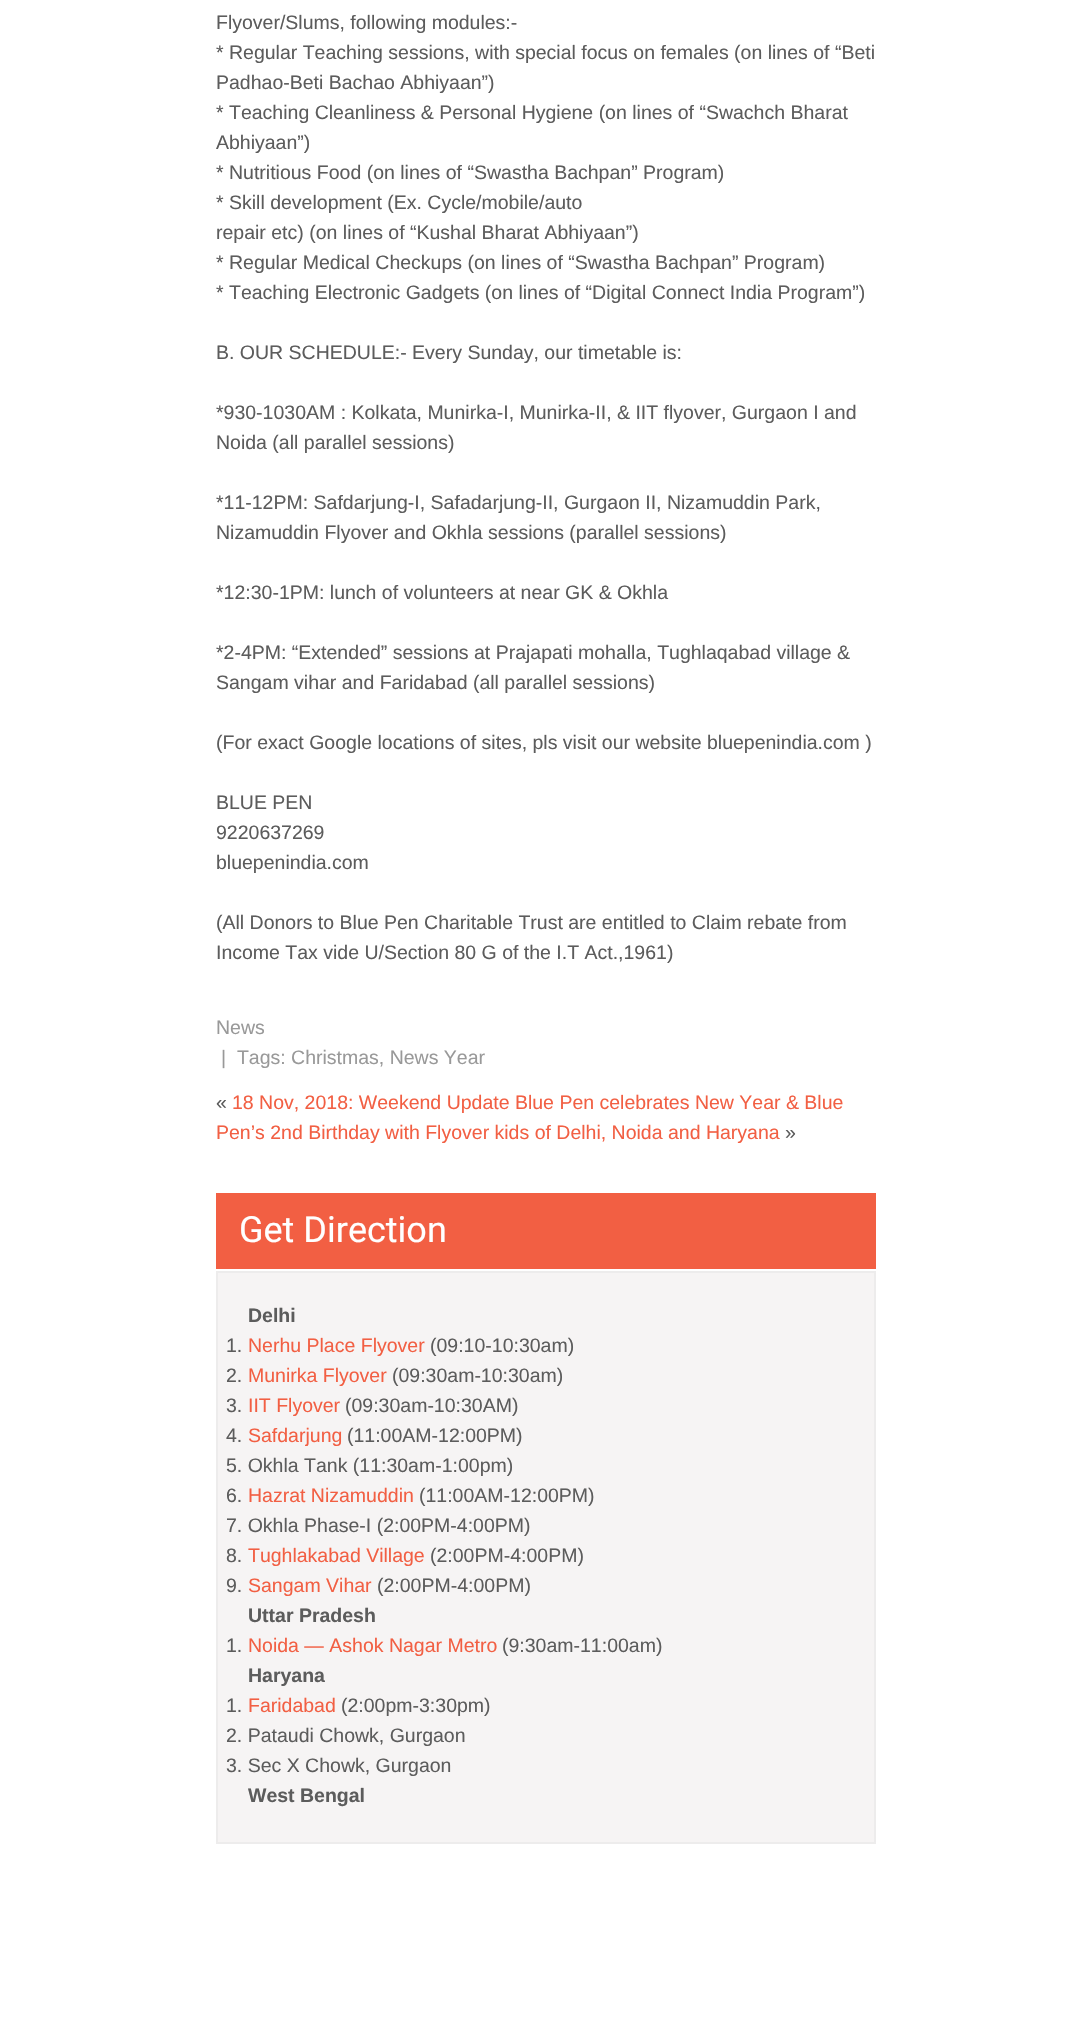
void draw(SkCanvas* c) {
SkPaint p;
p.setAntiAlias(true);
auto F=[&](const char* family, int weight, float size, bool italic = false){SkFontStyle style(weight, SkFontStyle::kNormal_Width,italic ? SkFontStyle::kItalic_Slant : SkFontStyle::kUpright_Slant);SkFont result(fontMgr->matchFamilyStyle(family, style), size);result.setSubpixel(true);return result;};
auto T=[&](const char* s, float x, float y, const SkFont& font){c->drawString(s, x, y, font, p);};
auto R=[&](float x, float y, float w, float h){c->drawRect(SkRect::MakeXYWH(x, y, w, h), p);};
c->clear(0xffffffff);
auto f1 = F("Liberation Sans",400,19.5);
p.setColor(0xff5c5c5c);
T("Flyover/Slums, following modules:-",216,29,f1);
T("* Regular Teaching sessions, with special focus on females (on lines of “Beti",216,59,f1);
T("Padhao-Beti Bachao Abhiyaan”)",216,89,f1);
T("* Teaching Cleanliness & Personal Hygiene (on lines of “Swachch Bharat",216,119,f1);
T("Abhiyaan”)",216,149,f1);
T("* Nutritious Food (on lines of “Swastha Bachpan” Program)",216,179,f1);
T("* Skill development (Ex. Cycle/mobile/auto",216,209,f1);
T("repair etc) (on lines of “Kushal Bharat Abhiyaan”)",216,239,f1);
T("* Regular Medical Checkups (on lines of “Swastha Bachpan” Program)",216,269,f1);
T("* Teaching Electronic Gadgets (on lines of “Digital Connect India Program”)",216,299,f1);
T("B. OUR SCHEDULE:- Every Sunday, our timetable is:",216,359,f1);
T("*930-1030AM : Kolkata, Munirka-I, Munirka-II, & IIT flyover, Gurgaon I and",216,419,f1);
T("Noida (all parallel sessions)",216,449,f1);
T("*11-12PM: Safdarjung-I, Safadarjung-II, Gurgaon II, Nizamuddin Park,",216,509,f1);
T("Nizamuddin Flyover and Okhla sessions (parallel sessions)",216,539,f1);
T("*12:30-1PM: lunch of volunteers at near GK & Okhla",216,599,f1);
T("*2-4PM: “Extended” sessions at Prajapati mohalla, Tughlaqabad village &",216,659,f1);
T("Sangam vihar and Faridabad (all parallel sessions)",216,689,f1);
T("(For exact Google locations of sites, pls visit our website bluepenindia.com )",216,749,f1);
T("BLUE PEN",216,809,f1);
T("9220637269",216,839,f1);
T("bluepenindia.com",216,869,f1);
T("(All Donors to Blue Pen Charitable Trust are entitled to Claim rebate from",216,929,f1);
T("Income Tax vide U/Section 80 G of the I.T Act.,1961)",216,959,f1);
p.setColor(0xff999999);
T("News",216,1034,f1);
T("|  Tags: Christmas, News Year",221,1064,f1);
p.setColor(0xff5c5c5c);
T("«",216,1109,f1);
p.setColor(0xfff25f43);
T("18 Nov, 2018: Weekend Update Blue Pen celebrates New Year & Blue",232,1109,f1);
T("Pen’s 2nd Birthday with Flyover kids of Delhi, Noida and Haryana",216,1139,f1);
p.setColor(0xff5c5c5c);
T("»",785,1139,f1);
p.setColor(0xfff25f43);
R(216,1193,660,76);
auto f2 = F("Roboto",400,36);
p.setColor(0xffffffff);
T("Get Direction",239,1242,f2);
p.setColor(0xfff6f4f4);
c->drawRect(SkRect::MakeXYWH(217,1272,658,571),p);
p.setStroke(true);
p.setStrokeWidth(2);
p.setColor(0xffedecec);
c->drawRect(SkRect::MakeXYWH(217,1272,658,571),p);
auto f3 = F("Liberation Sans",700,19.5);
p.setStroke(false);
p.setColor(0xff5c5c5c);
T("Delhi",248,1322,f3);
T("1.",226,1352,f1);
p.setColor(0xfff25f43);
T("Nerhu Place Flyover",248,1352,f1);
p.setColor(0xff5c5c5c);
T("(09:10-10:30am)",430,1352,f1);
T("2.",226,1382,f1);
p.setColor(0xfff25f43);
T("Munirka Flyover",248,1382,f1);
p.setColor(0xff5c5c5c);
T("(09:30am-10:30am)",392,1382,f1);
T("3.",226,1412,f1);
p.setColor(0xfff25f43);
T("IIT Flyover",248,1412,f1);
p.setColor(0xff5c5c5c);
T("(09:30am-10:30AM)",345,1412,f1);
T("4.",226,1442,f1);
p.setColor(0xfff25f43);
T("Safdarjung",248,1442,f1);
p.setColor(0xff5c5c5c);
T("(11:00AM-12:00PM)",347,1442,f1);
T("5. Okhla Tank (11:30am-1:00pm)",226,1472,f1);
T("6.",226,1502,f1);
p.setColor(0xfff25f43);
T("Hazrat Nizamuddin",248,1502,f1);
p.setColor(0xff5c5c5c);
T("(11:00AM-12:00PM)",419,1502,f1);
T("7. Okhla Phase-I (2:00PM-4:00PM)",226,1532,f1);
T("8.",226,1562,f1);
p.setColor(0xfff25f43);
T("Tughlakabad Village",248,1562,f1);
p.setColor(0xff5c5c5c);
T("(2:00PM-4:00PM)",430,1562,f1);
T("9.",226,1592,f1);
p.setColor(0xfff25f43);
T("Sangam Vihar",248,1592,f1);
p.setColor(0xff5c5c5c);
T("(2:00PM-4:00PM)",377,1592,f1);
T("Uttar Pradesh",248,1622,f3);
T("1.",226,1652,f1);
p.setColor(0xfff25f43);
T("Noida — Ashok Nagar Metro",248,1652,f1);
p.setColor(0xff5c5c5c);
T("(9:30am-11:00am)",502,1652,f1);
T("Haryana",248,1682,f3);
T("1.",226,1712,f1);
p.setColor(0xfff25f43);
T("Faridabad",248,1712,f1);
p.setColor(0xff5c5c5c);
T("(2:00pm-3:30pm)",341,1712,f1);
T("2. Pataudi Chowk, Gurgaon",226,1742,f1);
T("3. Sec X Chowk, Gurgaon",226,1772,f1);
T("West Bengal",248,1802,f3);
}
